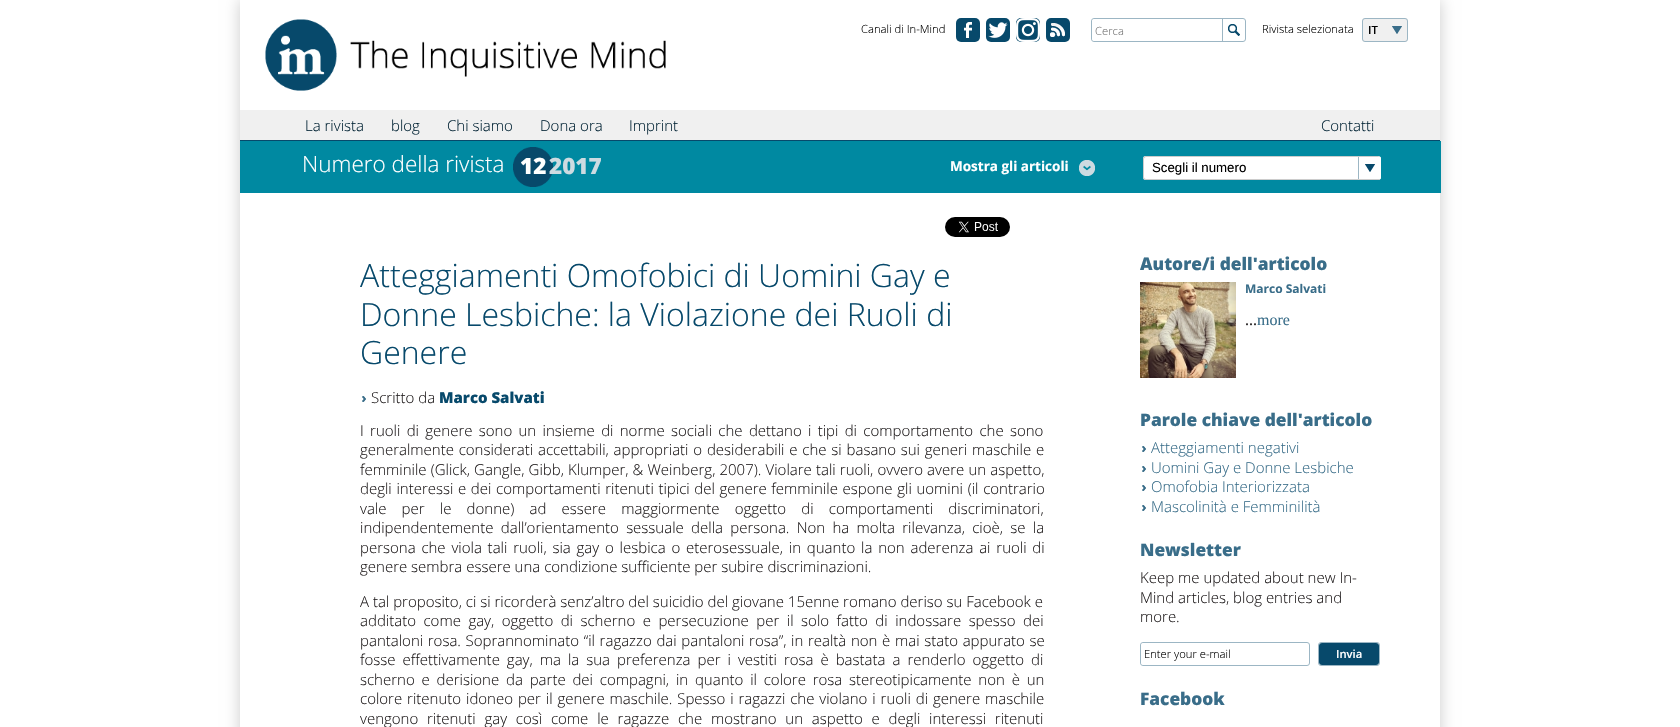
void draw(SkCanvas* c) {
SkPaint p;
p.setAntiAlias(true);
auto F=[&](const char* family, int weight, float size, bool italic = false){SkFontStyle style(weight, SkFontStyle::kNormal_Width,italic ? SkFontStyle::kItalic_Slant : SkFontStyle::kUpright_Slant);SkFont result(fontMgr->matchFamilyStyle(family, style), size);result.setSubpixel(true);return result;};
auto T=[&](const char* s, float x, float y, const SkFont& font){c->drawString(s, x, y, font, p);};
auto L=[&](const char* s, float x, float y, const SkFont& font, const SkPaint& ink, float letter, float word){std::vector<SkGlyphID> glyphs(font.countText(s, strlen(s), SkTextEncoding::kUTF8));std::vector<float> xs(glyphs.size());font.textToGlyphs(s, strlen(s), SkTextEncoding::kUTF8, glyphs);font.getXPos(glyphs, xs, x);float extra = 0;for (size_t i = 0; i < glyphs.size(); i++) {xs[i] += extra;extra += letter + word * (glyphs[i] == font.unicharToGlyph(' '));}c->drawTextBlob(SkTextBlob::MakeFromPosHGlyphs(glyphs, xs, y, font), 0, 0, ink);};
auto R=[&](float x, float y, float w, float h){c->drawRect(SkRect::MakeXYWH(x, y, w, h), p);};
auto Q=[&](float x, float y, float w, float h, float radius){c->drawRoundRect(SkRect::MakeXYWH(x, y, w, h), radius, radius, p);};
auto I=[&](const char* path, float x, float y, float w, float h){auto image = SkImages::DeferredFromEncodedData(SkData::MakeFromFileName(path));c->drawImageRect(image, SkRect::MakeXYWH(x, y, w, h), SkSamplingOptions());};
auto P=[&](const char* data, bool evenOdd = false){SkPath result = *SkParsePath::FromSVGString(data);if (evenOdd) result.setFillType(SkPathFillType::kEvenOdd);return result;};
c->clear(0xffffffff);
c->save();
c->clipPath(P("M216 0h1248v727h-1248zm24 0h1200v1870h-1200z",true),true);
p.setColor(0xffcccccc);
p.setMaskFilter(SkMaskFilter::MakeBlur(kNormal_SkBlurStyle, 7.5));
c->drawRect(SkRect::MakeXYWH(240,0,1200,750),p);
p.setMaskFilter(nullptr);
c->restore();
I("1.png",265,19,401,72);
auto f1 = F("Open Sans",300,11.25);
p.setColor(0xff000000);
T("Canali di In-Mind",861,33,f1);
p.setColor(0xff07496b);
Q(956,18,24,24,5);
I("2.png",964,22,8,16);
Q(986,18,24,24,5);
I("3.png",988,22,20,16);
Q(1016,18,24,24,5);
I("4.png",1016,18,24,24);
Q(1046,18,24,24,5);
I("5.png",1050,23,15,14);
p.setStroke(true);
p.setStrokeWidth(1);
p.setColor(0xff9cb6c4);
c->drawRoundRect(SkRect::MakeXYWH(1091.5,18.5,154,23),2.5,2.5,p);
p.setStroke(false);
p.setColor(0xffffffff);
Q(1092,19,128,22,3);
p.setColor(0xff757575);
T("Cerca",1095,35,f1);
p.setColor(0xff9cb6c4);
R(1222,19,1,22);
I("6.png",1228,24,12,12);
p.setColor(0xff000000);
T("Rivista selezionata",1262,33,f1);
p.setColor(0xfff0f0f0);
Q(1362,18,46,24,3);
I("7.png",1392,26,10,8);
p.setStroke(true);
p.setColor(0xff9cb6c4);
c->drawRoundRect(SkRect::MakeXYWH(1362.5,18.5,45,23),2.5,2.5,p);
auto f2 = F("Open Sans",600,11.25);
p.setStroke(false);
p.setColor(0xff000000);
T("IT",1368,34,f2);
p.setColor(0xfff0f0f0);
R(240,110,1200,30);
p.setColor(0xff07496b);
R(240,140,1200,1);
auto f3 = F("Open Sans",300,15);
p.setColor(0xff042536);
T("La rivista",305,131,f3);
T("blog",391,131,f3);
T("Chi siamo",447,131,f3);
T("Dona ora",540,131,f3);
T("Imprint",629,131,f3);
T("Contatti",1321,131,f3);
p.setColor(0xff0089a1);
R(240,141,1201,52);
auto f4 = F("Open Sans",300,22.5);
p.setColor(0xffffffff);
T("Numero della rivista",302,172,f4);
I("8.png",513,147,40,40);
auto f5 = F("Open Sans",800,22.5);
T("12",520,174,f5);
p.setColor(0xffcddbe1);
T("2017",549,174,f5);
I("9.png",1079,160,16,16);
auto f6 = F("Open Sans",700,13.5);
p.setColor(0xffffffff);
T("Mostra gli articoli",950,171,f6);
Q(1143,156,238,24,3);
I("10.png",1358,157,23,22);
p.setColor(0xffcccccc);
c->drawPath(P("M1146 156c-2 0-3 1-3 3v18c0 2 1 3 3 3h232c1 0 2 0 2-1h-234c-1 0-2-1-2-2v-18c0-1 1-2 2-2h234l-2-1z"),p);
auto f7 = F("Liberation Sans",400,13.25);
p.setColor(0xff000000);
T("Scegli il numero",1152,172,f7);
I("11.png",945,217,65,20);
auto f8 = F("Open Sans",300,32);
p.setColor(0xff07496b);
T("Atteggiamenti Omofobici di Uomini Gay e",360,287,f8);
T("Donne Lesbiche: la Violazione dei Ruoli di",360,326,f8);
T("Genere",360,364,f8);
I("12.png",362,396,4,6);
p.setColor(0xff231f20);
T("Scritto da",371,403,f3);
auto f9 = F("Open Sans",800,15);
p.setColor(0xff07496b);
T("Marco Salvati",439,403,f9);
p.setColor(0xff231f20);
L("I ruoli di genere sono un insieme di norme sociali che dettano i tipi di comportamento che sono",360,436,f3,p,0,2.4);
L("generalmente considerati accettabili, appropriati o desiderabili e che si basano sui generi maschile e",360,455,f3,p,0,.9);
L("femminile (Glick, Gangle, Gibb, Klumper, & Weinberg, 2007). Violare tali ruoli, ovvero avere un aspetto,",360,475,f3,p,0,.25);
L("degli interessi e dei comportamenti ritenuti tipici del genere femminile espone gli uomini (il contrario",360,494,f3,p,0,.75);
L("vale per le donne) ad essere maggiormente oggetto di comportamenti discriminatori,",360,514,f3,p,0,11.25);
L("indipendentemente dall’orientamento sessuale della persona. Non ha molta rilevanza, cioè, se la",360,533,f3,p,0,3.4);
L("persona che viola tali ruoli, sia gay o lesbica o eterosessuale, in quanto la non aderenza ai ruoli di",360,553,f3,p,0,1.9);
T("genere sembra essere una condizione sufficiente per subire discriminazioni.",360,572,f3);
T("A tal proposito, ci si ricorderà senz’altro del suicidio del giovane 15enne romano deriso su Facebook e",360,607,f3);
L("additato come gay, oggetto di scherno e persecuzione per il solo fatto di indossare spesso dei",360,626,f3,p,0,3.6);
L("pantaloni rosa. Soprannominato “il ragazzo dai pantaloni rosa”, in realtà non è mai stato appurato se",360,646,f3,p,0,.75);
L("fosse effettivamente gay, ma la sua preferenza per i vestiti rosa è bastata a renderlo oggetto di",360,665,f3,p,0,3.1);
L("scherno e derisione da parte dei compagni, in quanto il colore rosa stereotipicamente non è un",360,685,f3,p,0,2.9);
L("colore ritenuto idoneo per il genere maschile. Spesso i ragazzi che violano i ruoli di genere maschile",360,704,f3,p,0,1);
L("vengono ritenuti gay così come le ragazze che mostrano un aspetto e degli interessi ritenuti",360,724,f3,p,0,4.9);
auto f10 = F("Open Sans",800,17.3);
p.setColor(0xff396d89);
T("Autore/i dell'articolo",1140,270,f10);
I("13.png",1140,282,96,96);
auto f11 = F("Open Sans",700,12);
T("Marco Salvati",1245,293,f11);
auto f12 = F("Liberation Serif",400,16);
p.setColor(0xff231f20);
T("...",1245,325,f12);
p.setColor(0xff396d89);
T("more",1257,325,f12);
T("Parole chiave dell'articolo",1140,426,f10);
I("12.png",1142,446,4,6);
T("Atteggiamenti negativi",1151,453,f3);
I("12.png",1142,466,4,6);
T("Uomini Gay e Donne Lesbiche",1151,473,f3);
I("12.png",1142,485,4,6);
T("Omofobia Interiorizzata",1151,492,f3);
I("12.png",1142,505,4,6);
T("Mascolinità e Femminilità",1151,512,f3);
T("Newsletter",1140,556,f10);
p.setColor(0xff231f20);
T("Keep me updated about new In-",1140,583,f3);
T("Mind articles, blog entries and",1140,603,f3);
T("more.",1140,622,f3);
p.setStroke(true);
p.setColor(0xff9cb6c4);
c->drawRoundRect(SkRect::MakeXYWH(1140.5,642.5,169,23),2.5,2.5,p);
p.setStroke(false);
p.setColor(0xffffffff);
Q(1141,643,158,22,3);
p.setColor(0xff000000);
T("Enter your e-mail",1144,658,f1);
p.setStroke(true);
p.setColor(0xff9cb6c4);
c->drawRoundRect(SkRect::MakeXYWH(1318.5,642.5,61,23),2.5,2.5,p);
p.setStroke(false);
p.setColor(0xff07496b);
Q(1319,643,60,22,3);
p.setColor(0xffffffff);
T("Invia",1336,658,f2);
p.setColor(0xff396d89);
T("Facebook",1140,705,f10);
}
